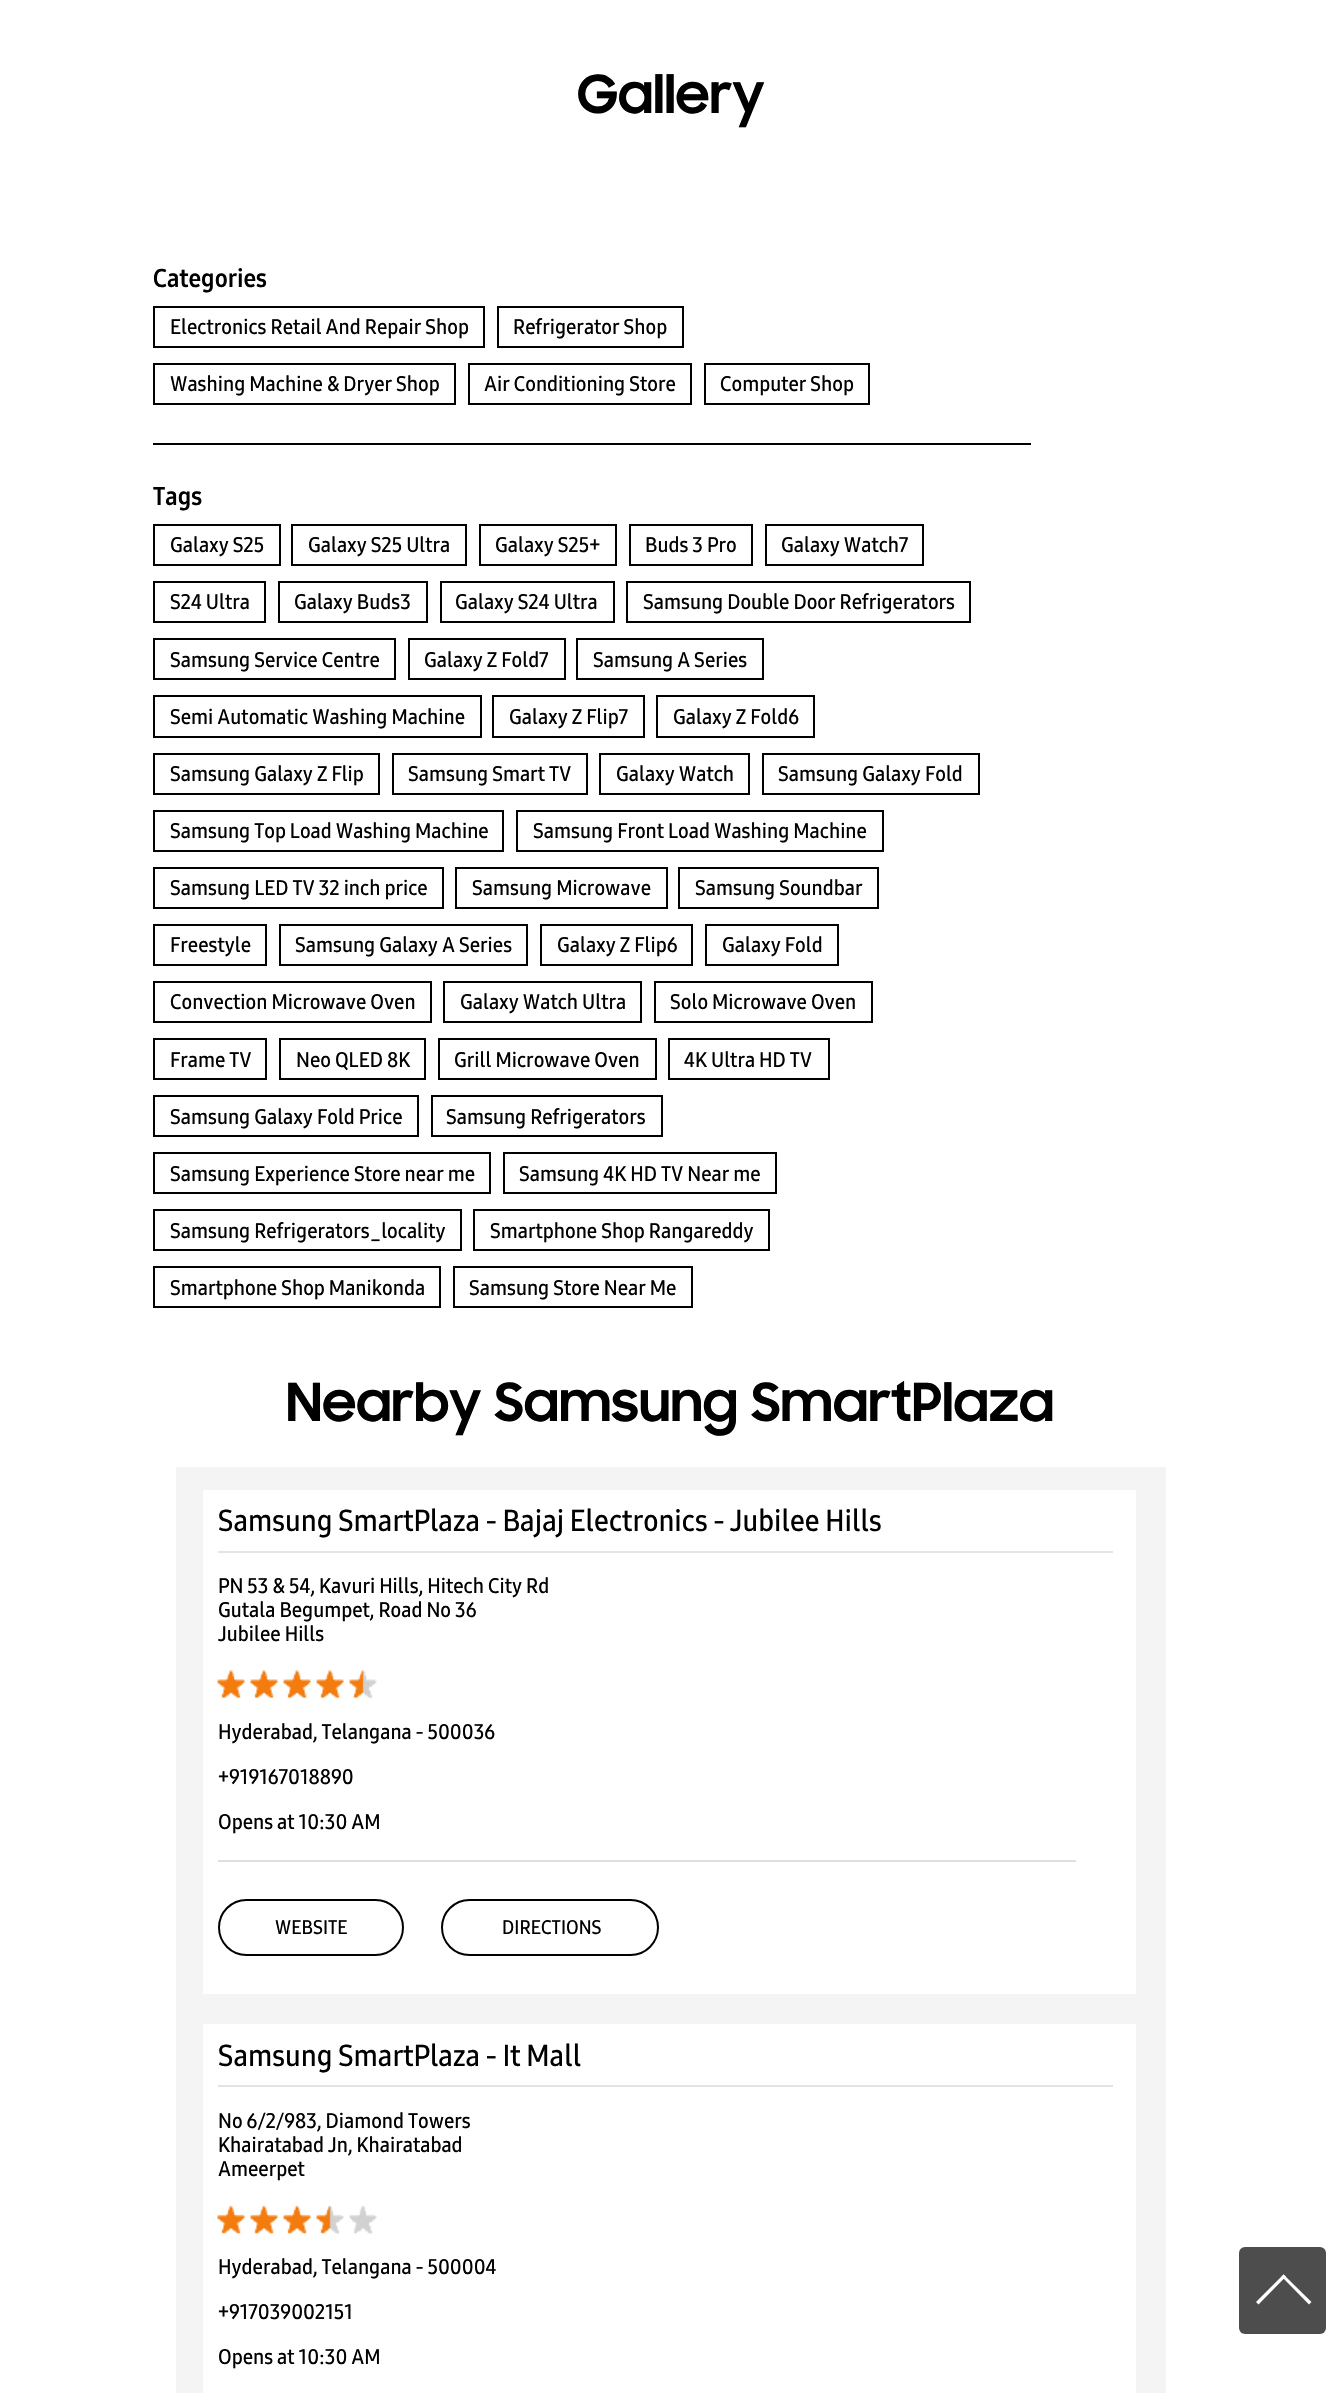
void draw(SkCanvas* c) {
SkPaint p;
p.setAntiAlias(true);
auto F=[&](const char* family, int weight, float size, bool italic = false){SkFontStyle style(weight, SkFontStyle::kNormal_Width,italic ? SkFontStyle::kItalic_Slant : SkFontStyle::kUpright_Slant);SkFont result(fontMgr->matchFamilyStyle(family, style), size);result.setSubpixel(true);return result;};
auto T=[&](const char* s, float x, float y, const SkFont& font){c->drawString(s, x, y, font, p);};
auto R=[&](float x, float y, float w, float h){c->drawRect(SkRect::MakeXYWH(x, y, w, h), p);};
auto Q=[&](float x, float y, float w, float h, float radius){c->drawRoundRect(SkRect::MakeXYWH(x, y, w, h), radius, radius, p);};
auto I=[&](const char* path, float x, float y, float w, float h){auto image = SkImages::DeferredFromEncodedData(SkData::MakeFromFileName(path));c->drawImageRect(image, SkRect::MakeXYWH(x, y, w, h), SkSamplingOptions());};
auto P=[&](const char* data, bool evenOdd = false){SkPath result = *SkParsePath::FromSVGString(data);if (evenOdd) result.setFillType(SkPathFillType::kEvenOdd);return result;};
c->clear(0xffffffff);
auto f1 = F("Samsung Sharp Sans",700,52.5);
p.setColor(0xff000000);
T("Gallery",577,113,f1);
auto f2 = F("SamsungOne",700,25.5);
T("Categories",153,287,f2);
R(153,443,878,2);
p.setStroke(true);
p.setStrokeWidth(2);
c->drawRect(SkRect::MakeXYWH(154,307,330,40),p);
auto f3 = F("SamsungOne",600,21);
p.setStroke(false);
T("Electronics Retail And Repair Shop",170,334,f3);
p.setStroke(true);
c->drawRect(SkRect::MakeXYWH(498,307,185,40),p);
p.setStroke(false);
T("Refrigerator Shop",513,334,f3);
p.setStroke(true);
c->drawRect(SkRect::MakeXYWH(154,364,301,40),p);
p.setStroke(false);
T("Washing Machine & Dryer Shop",170,391,f3);
p.setStroke(true);
c->drawRect(SkRect::MakeXYWH(469,364,222,40),p);
p.setStroke(false);
T("Air Conditioning Store",484,391,f3);
p.setStroke(true);
c->drawRect(SkRect::MakeXYWH(705,364,164,40),p);
p.setStroke(false);
T("Computer Shop",720,391,f3);
T("Tags",153,505,f2);
p.setStroke(true);
c->drawRect(SkRect::MakeXYWH(154,525,126,40),p);
p.setStroke(false);
T("Galaxy S25",170,552,f3);
p.setStroke(true);
c->drawRect(SkRect::MakeXYWH(292,525,174,40),p);
p.setStroke(false);
T("Galaxy S25 Ultra",308,552,f3);
p.setStroke(true);
c->drawRect(SkRect::MakeXYWH(480,525,136,40),p);
p.setStroke(false);
T("Galaxy S25+",495,552,f3);
p.setStroke(true);
c->drawRect(SkRect::MakeXYWH(630,525,122,40),p);
p.setStroke(false);
T("Buds 3 Pro",645,552,f3);
p.setStroke(true);
c->drawRect(SkRect::MakeXYWH(766,525,157,40),p);
p.setStroke(false);
T("Galaxy Watch7",781,552,f3);
p.setStroke(true);
c->drawRect(SkRect::MakeXYWH(154,582,111,40),p);
p.setStroke(false);
T("S24 Ultra",170,609,f3);
p.setStroke(true);
c->drawRect(SkRect::MakeXYWH(279,582,148,40),p);
p.setStroke(false);
T("Galaxy Buds3",294,609,f3);
p.setStroke(true);
c->drawRect(SkRect::MakeXYWH(441,582,173,40),p);
p.setStroke(false);
T("Galaxy S24 Ultra",455,609,f3);
p.setStroke(true);
c->drawRect(SkRect::MakeXYWH(627,582,343,40),p);
p.setStroke(false);
T("Samsung Double Door Refrigerators",643,609,f3);
p.setStroke(true);
c->drawRect(SkRect::MakeXYWH(154,639,241,40),p);
p.setStroke(false);
T("Samsung Service Centre",170,667,f3);
p.setStroke(true);
c->drawRect(SkRect::MakeXYWH(409,639,156,40),p);
p.setStroke(false);
T("Galaxy Z Fold7",424,667,f3);
p.setStroke(true);
c->drawRect(SkRect::MakeXYWH(577,639,186,40),p);
p.setStroke(false);
T("Samsung A Series",593,667,f3);
p.setStroke(true);
c->drawRect(SkRect::MakeXYWH(154,696,327,41),p);
p.setStroke(false);
T("Semi Automatic Washing Machine",170,724,f3);
p.setStroke(true);
c->drawRect(SkRect::MakeXYWH(493,696,151,41),p);
p.setStroke(false);
T("Galaxy Z Flip7",509,724,f3);
p.setStroke(true);
c->drawRect(SkRect::MakeXYWH(657,696,157,41),p);
p.setStroke(false);
T("Galaxy Z Fold6",673,724,f3);
p.setStroke(true);
c->drawRect(SkRect::MakeXYWH(154,754,225,40),p);
p.setStroke(false);
T("Samsung Galaxy Z Flip",170,781,f3);
p.setStroke(true);
c->drawRect(SkRect::MakeXYWH(393,754,194,40),p);
p.setStroke(false);
T("Samsung Smart TV",408,781,f3);
p.setStroke(true);
c->drawRect(SkRect::MakeXYWH(600,754,149,40),p);
p.setStroke(false);
T("Galaxy Watch",616,781,f3);
p.setStroke(true);
c->drawRect(SkRect::MakeXYWH(763,754,216,40),p);
p.setStroke(false);
T("Samsung Galaxy Fold",778,781,f3);
p.setStroke(true);
c->drawRect(SkRect::MakeXYWH(154,811,349,40),p);
p.setStroke(false);
T("Samsung Top Load Washing Machine",170,838,f3);
p.setStroke(true);
c->drawRect(SkRect::MakeXYWH(517,811,366,40),p);
p.setStroke(false);
T("Samsung Front Load Washing Machine",533,838,f3);
p.setStroke(true);
c->drawRect(SkRect::MakeXYWH(154,868,289,40),p);
p.setStroke(false);
T("Samsung LED TV 32 inch price",170,895,f3);
p.setStroke(true);
c->drawRect(SkRect::MakeXYWH(456,868,211,40),p);
p.setStroke(false);
T("Samsung Microwave",472,895,f3);
p.setStroke(true);
c->drawRect(SkRect::MakeXYWH(679,868,199,40),p);
p.setStroke(false);
T("Samsung Soundbar",695,895,f3);
p.setStroke(true);
c->drawRect(SkRect::MakeXYWH(154,925,112,40),p);
p.setStroke(false);
T("Freestyle",170,952,f3);
p.setStroke(true);
c->drawRect(SkRect::MakeXYWH(280,925,247,40),p);
p.setStroke(false);
T("Samsung Galaxy A Series",295,952,f3);
p.setStroke(true);
c->drawRect(SkRect::MakeXYWH(541,925,151,40),p);
p.setStroke(false);
T("Galaxy Z Flip6",557,952,f3);
p.setStroke(true);
c->drawRect(SkRect::MakeXYWH(706,925,132,40),p);
p.setStroke(false);
T("Galaxy Fold",722,952,f3);
p.setStroke(true);
c->drawRect(SkRect::MakeXYWH(154,982,277,40),p);
p.setStroke(false);
T("Convection Microwave Oven",170,1009,f3);
p.setStroke(true);
c->drawRect(SkRect::MakeXYWH(444,982,197,40),p);
p.setStroke(false);
T("Galaxy Watch Ultra",460,1009,f3);
p.setStroke(true);
c->drawRect(SkRect::MakeXYWH(655,982,217,40),p);
p.setStroke(false);
T("Solo Microwave Oven",670,1009,f3);
p.setStroke(true);
c->drawRect(SkRect::MakeXYWH(154,1039,112,40),p);
p.setStroke(false);
T("Frame TV",170,1067,f3);
p.setStroke(true);
c->drawRect(SkRect::MakeXYWH(280,1039,145,40),p);
p.setStroke(false);
T("Neo QLED 8K",296,1067,f3);
p.setStroke(true);
c->drawRect(SkRect::MakeXYWH(439,1039,217,40),p);
p.setStroke(false);
T("Grill Microwave Oven",454,1067,f3);
p.setStroke(true);
c->drawRect(SkRect::MakeXYWH(669,1039,160,40),p);
p.setStroke(false);
T("4K Ultra HD TV",684,1067,f3);
p.setStroke(true);
c->drawRect(SkRect::MakeXYWH(154,1096,264,40),p);
p.setStroke(false);
T("Samsung Galaxy Fold Price",170,1124,f3);
p.setStroke(true);
c->drawRect(SkRect::MakeXYWH(432,1096,230,40),p);
p.setStroke(false);
T("Samsung Refrigerators",446,1124,f3);
p.setStroke(true);
c->drawRect(SkRect::MakeXYWH(154,1153,336,40),p);
p.setStroke(false);
T("Samsung Experience Store near me",170,1181,f3);
p.setStroke(true);
c->drawRect(SkRect::MakeXYWH(504,1153,272,40),p);
p.setStroke(false);
T("Samsung 4K HD TV Near me",519,1181,f3);
p.setStroke(true);
c->drawRect(SkRect::MakeXYWH(154,1210,307,40),p);
p.setStroke(false);
T("Samsung Refrigerators_locality",170,1238,f3);
p.setStroke(true);
c->drawRect(SkRect::MakeXYWH(474,1210,295,40),p);
p.setStroke(false);
T("Smartphone Shop Rangareddy",490,1238,f3);
p.setStroke(true);
c->drawRect(SkRect::MakeXYWH(154,1267,286,40),p);
p.setStroke(false);
T("Smartphone Shop Manikonda",170,1295,f3);
p.setStroke(true);
c->drawRect(SkRect::MakeXYWH(454,1267,238,40),p);
p.setStroke(false);
T("Samsung Store Near Me",469,1295,f3);
T("Nearby Samsung SmartPlaza",286,1421,f1);
p.setColor(0xfff4f4f4);
R(176,1467,990,926);
p.setColor(0xffffffff);
R(203,1490,933,504);
p.setColor(0xffe4e4e4);
R(218,1551,895,2);
auto f4 = F("SamsungOne",600,30);
p.setColor(0xff000000);
T("Samsung SmartPlaza - Bajaj Electronics - Jubilee Hills",218,1531,f4);
T("PN 53 & 54, Kavuri Hills, Hitech City Rd",218,1593,f3);
T("Gutala Begumpet, Road No 36",218,1617,f3);
T("Jubilee Hills",218,1641,f3);
I("1.png",217,1670,28,29);
I("1.png",250,1670,28,29);
I("2.png",283,1670,28,29);
I("1.png",316,1670,28,29);
I("3.png",349,1670,28,29);
T("Hyderabad, Telangana - 500036",218,1739,f3);
T("+919167018890",218,1784,f3);
T("Opens at 10:30 AM",218,1829,f3);
p.setColor(0xffdfdfdf);
R(218,1860,858,2);
p.setStroke(true);
p.setColor(0xff000000);
c->drawRoundRect(SkRect::MakeXYWH(219,1900,184,55),27.5,27.5,p);
auto f5 = F("SamsungOne",600,19.5);
p.setStroke(false);
T("WEBSITE",275,1934,f5);
p.setStroke(true);
c->drawRoundRect(SkRect::MakeXYWH(442,1900,216,55),27.5,27.5,p);
p.setStroke(false);
T("DIRECTIONS",502,1934,f5);
p.setColor(0xffffffff);
R(203,2024,933,369);
p.setColor(0xffe4e4e4);
R(218,2085,895,2);
p.setColor(0xff000000);
T("Samsung SmartPlaza - It Mall",218,2066,f4);
T("No 6/2/983, Diamond Towers",218,2128,f3);
T("Khairatabad Jn, Khairatabad",218,2152,f3);
T("Ameerpet",218,2176,f3);
I("4.png",217,2205,28,30);
I("4.png",250,2205,28,30);
I("5.png",283,2205,28,30);
I("6.png",316,2205,28,30);
I("7.png",349,2205,28,30);
T("Hyderabad, Telangana - 500004",218,2274,f3);
T("+917039002151",218,2319,f3);
T("Opens at 10:30 AM",218,2364,f3);
p.setColor(0xff4d4d4d);
Q(1239,2247,87,87,6);
p.setColor(0xffffffff);
c->drawPath(P("M1258.5 2304.5l-2.5-2.5l27.5-27.5l2.5 2z"),p);
c->drawPath(P("M1309 2304.5l-27.5-28l2-2l28 27.5z"),p);
}
